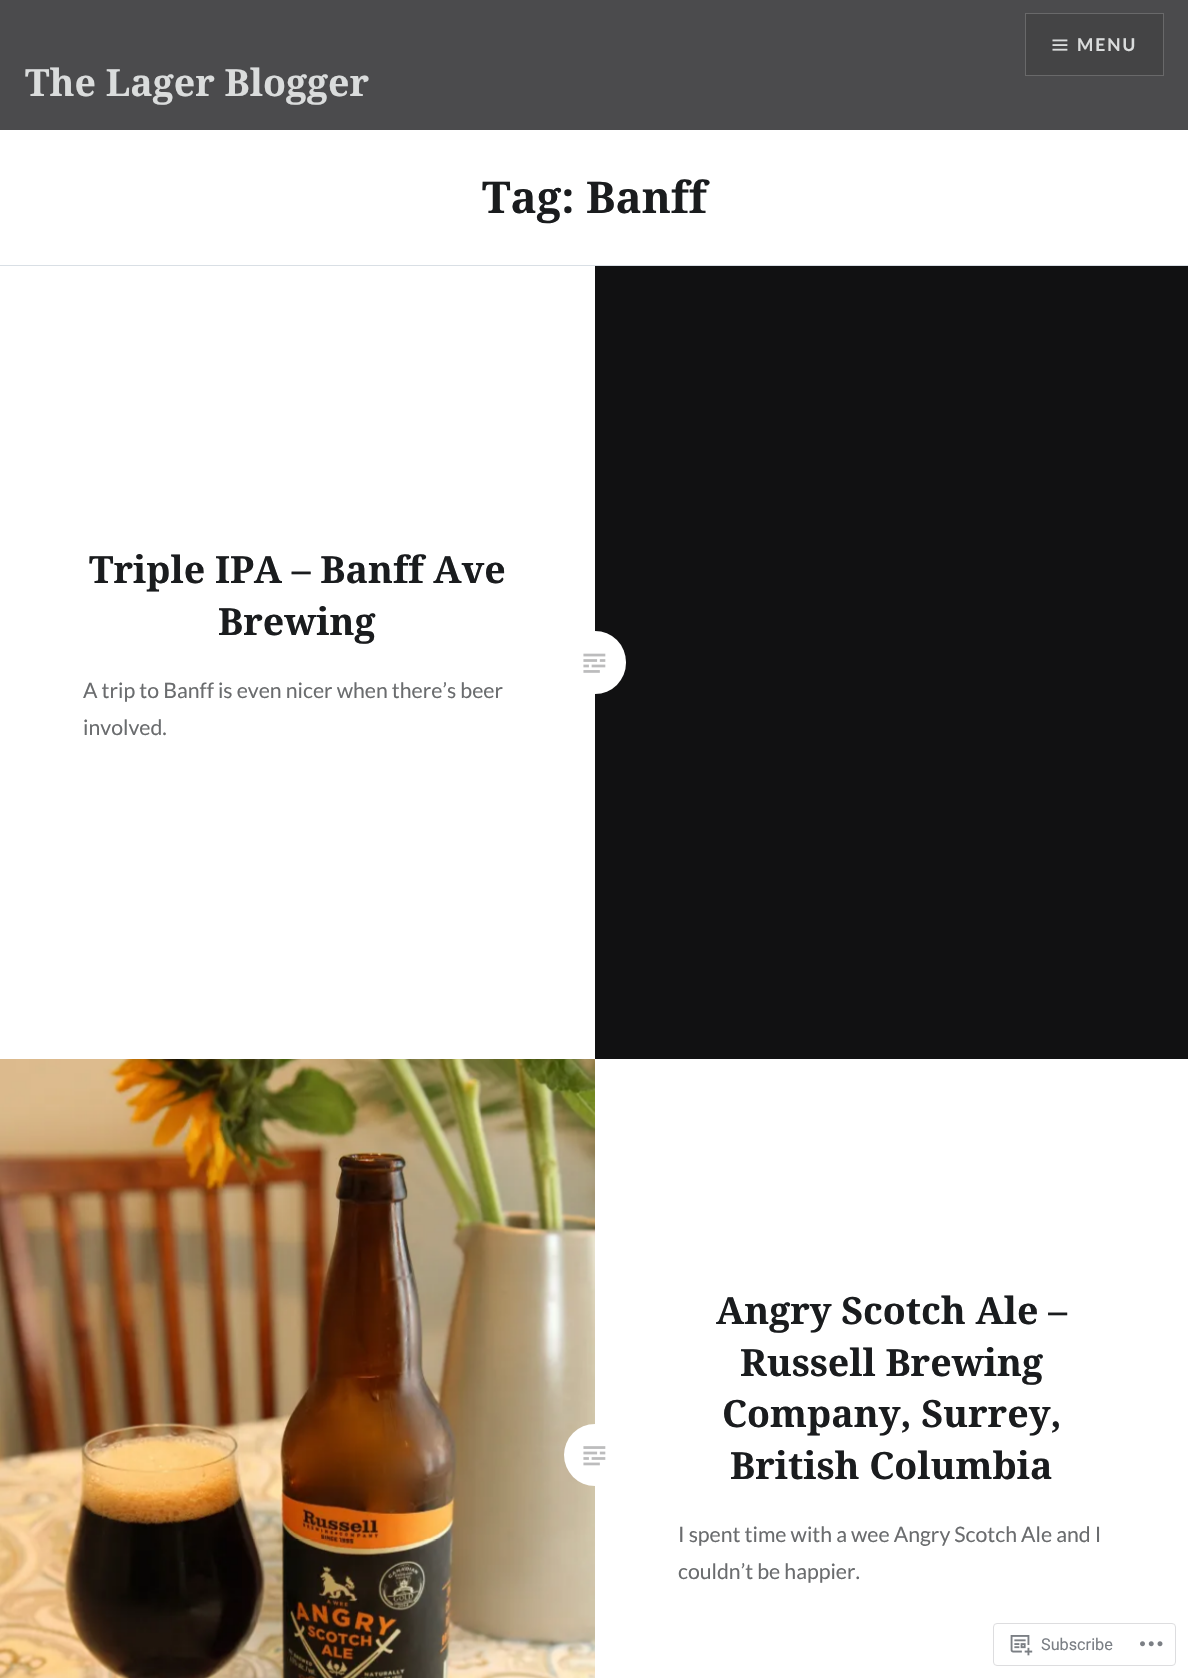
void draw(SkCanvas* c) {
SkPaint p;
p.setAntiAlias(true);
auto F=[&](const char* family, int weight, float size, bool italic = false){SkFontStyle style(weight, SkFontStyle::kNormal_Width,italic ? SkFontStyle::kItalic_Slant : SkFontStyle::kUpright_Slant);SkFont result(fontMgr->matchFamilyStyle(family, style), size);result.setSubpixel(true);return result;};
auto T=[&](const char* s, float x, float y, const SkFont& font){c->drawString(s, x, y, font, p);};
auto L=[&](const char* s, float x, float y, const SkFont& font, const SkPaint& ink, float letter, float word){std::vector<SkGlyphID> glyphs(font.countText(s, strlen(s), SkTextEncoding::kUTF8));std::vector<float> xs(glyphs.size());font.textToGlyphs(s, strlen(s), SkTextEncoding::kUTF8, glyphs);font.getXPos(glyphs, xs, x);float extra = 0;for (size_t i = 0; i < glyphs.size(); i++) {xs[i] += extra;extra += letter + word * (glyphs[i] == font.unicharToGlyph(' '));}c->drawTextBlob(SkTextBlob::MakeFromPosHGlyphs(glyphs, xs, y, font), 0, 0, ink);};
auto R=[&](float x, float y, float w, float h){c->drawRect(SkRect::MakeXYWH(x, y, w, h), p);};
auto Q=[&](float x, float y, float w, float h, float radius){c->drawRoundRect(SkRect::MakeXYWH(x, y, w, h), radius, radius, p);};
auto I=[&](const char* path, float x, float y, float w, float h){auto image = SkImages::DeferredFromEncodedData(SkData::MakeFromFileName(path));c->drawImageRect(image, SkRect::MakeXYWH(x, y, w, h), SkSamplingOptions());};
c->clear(0xffffffff);
p.setColor(0xff4b4b4d);
R(0,0,1188,130);
p.setColor(0xff444445);
c->drawRect(SkRect::MakeXYWH(1025.5,13.5,138,62),p);
p.setStroke(true);
p.setStrokeWidth(1);
p.setColor(0xff69696a);
c->drawRect(SkRect::MakeXYWH(1025.5,13.5,138,62),p);
I("1.png",1052,39,16,12);
auto f1 = F("Lato",700,17.5);
p.setStroke(false);
p.setColor(0xffdadcdc);
L("MENU",1077,51,f1,p,2,0);
auto f2 = F("Noto Serif",700,37.5);
T("The Lager Blogger",25,96,f2);
p.setColor(0xffd9dfe5);
R(0,265,1188,1);
auto f3 = F("Noto Serif",700,43.75);
p.setColor(0xff1a1c1e);
T("Tag: Banff",482,213,f3);
T("Triple IPA – Banff Ave",89,583,f2);
T("Brewing",218,635,f2);
auto f4 = F("Lato",400,21.25);
p.setColor(0xff6a6c6e);
T("A trip to Banff is even nicer when there’s beer",83,698,f4);
T("involved.",83,735,f4);
p.setColor(0xff111112);
R(595,266,593,793);
p.setColor(0xffffffff);
Q(564,631,62,63,31);
I("2.png",583,653,23,20);
I("3.png",0,1059,595,619);
c->drawCircle(595,1455,31,p);
p.setColor(0xff1a1c1e);
T("Angry Scotch Ale –",716,1324,f2);
T("Russell Brewing",740,1376,f2);
T("Company, Surrey,",722,1427,f2);
T("British Columbia",730,1479,f2);
p.setColor(0xff6a6c6e);
T("I spent time with a wee Angry Scotch Ale and I",678,1542,f4);
T("couldn’t be happier.",678,1579,f4);
I("4.png",583,1446,23,20);
p.setStroke(true);
p.setColor(0xffdddddf);
c->drawRoundRect(SkRect::MakeXYWH(993.5,1623.5,182,42),3.5,3.5,p);
I("5.png",1010,1635,23,21);
auto f5 = F("Roboto",400,16.25);
p.setStroke(false);
p.setColor(0xff7b7f85);
T("Subscribe",1041,1650,f5);
I("6.png",1140,1641,23,6);
}
